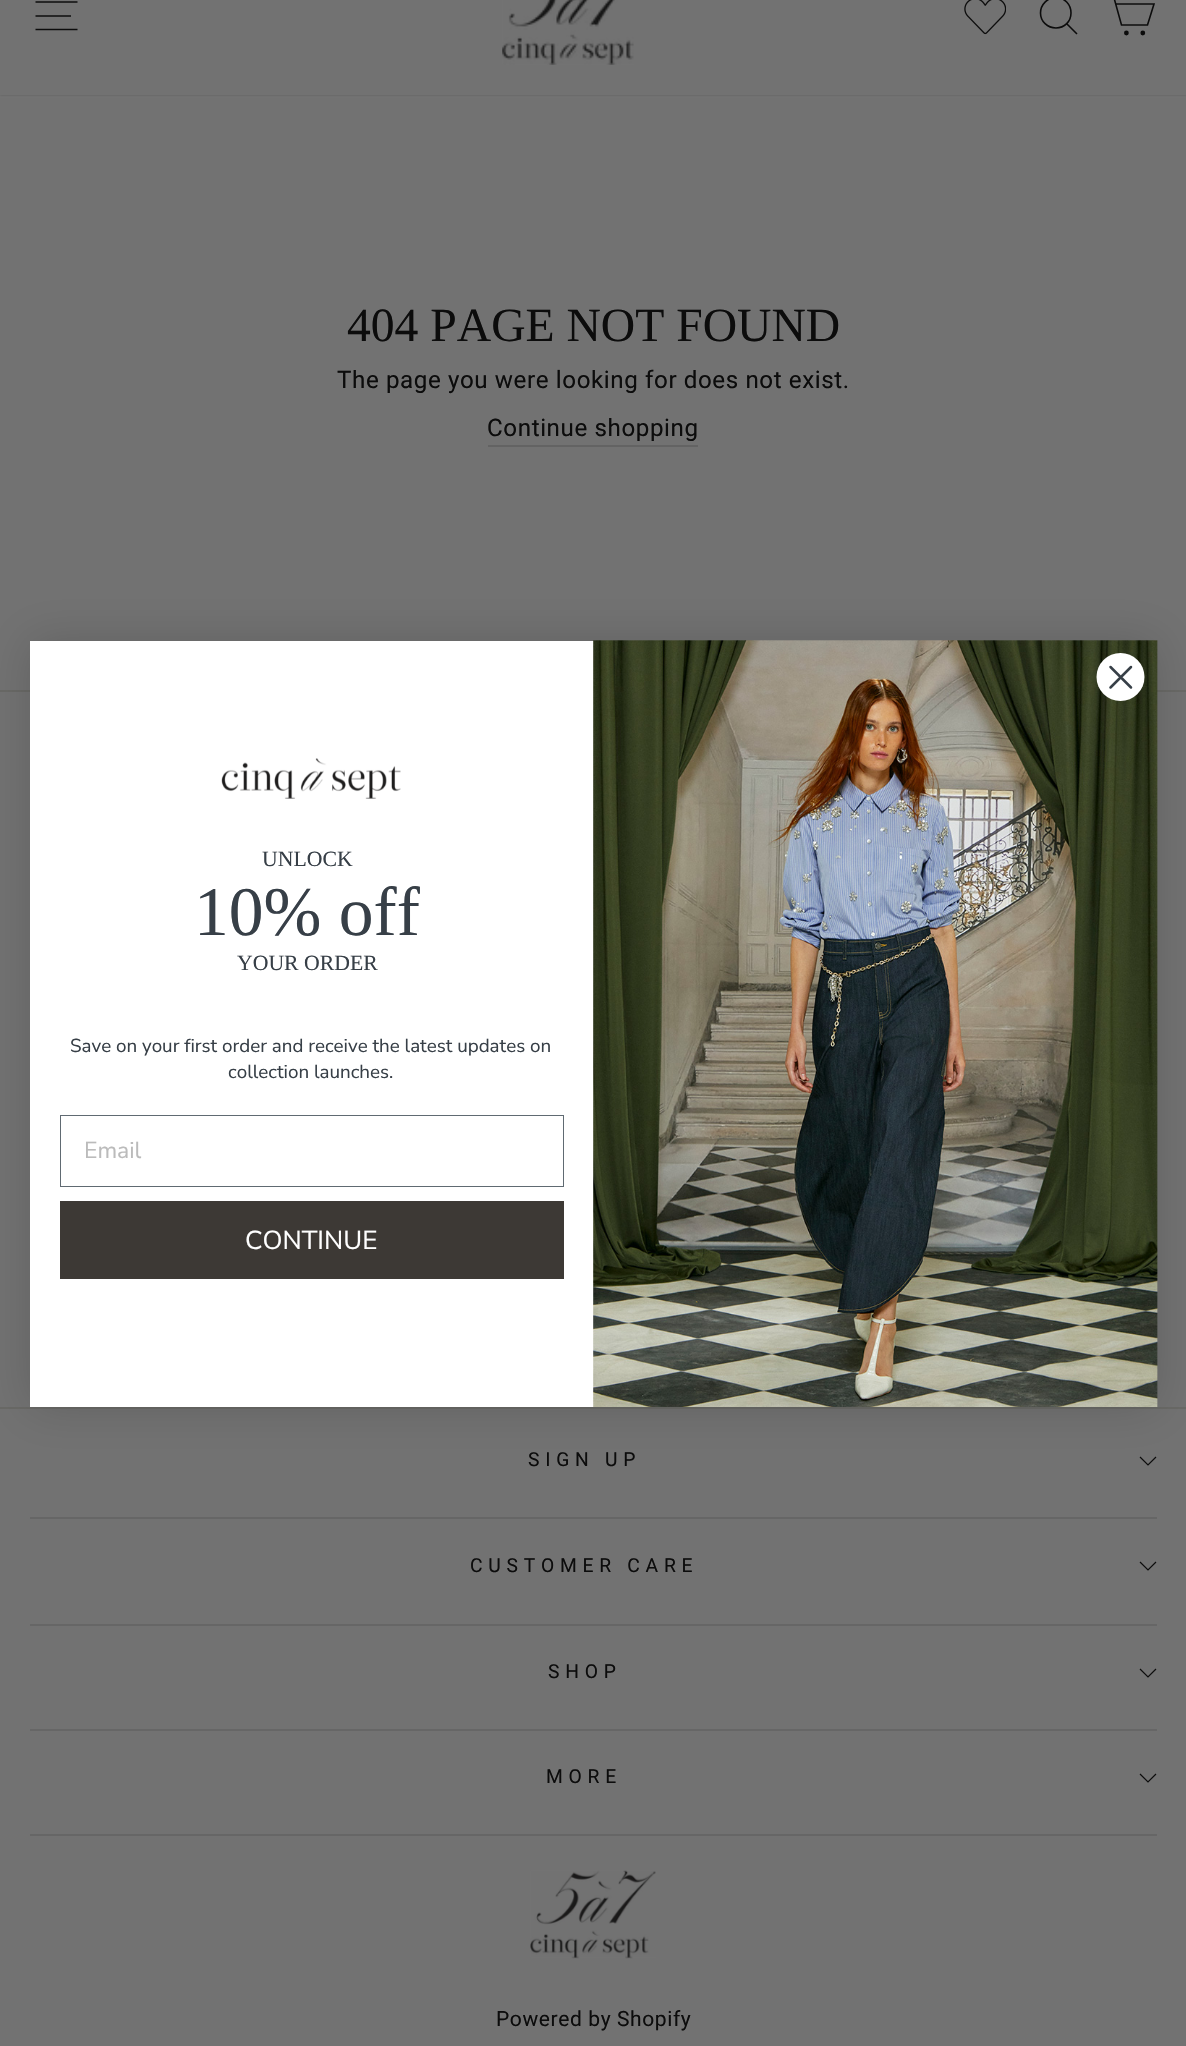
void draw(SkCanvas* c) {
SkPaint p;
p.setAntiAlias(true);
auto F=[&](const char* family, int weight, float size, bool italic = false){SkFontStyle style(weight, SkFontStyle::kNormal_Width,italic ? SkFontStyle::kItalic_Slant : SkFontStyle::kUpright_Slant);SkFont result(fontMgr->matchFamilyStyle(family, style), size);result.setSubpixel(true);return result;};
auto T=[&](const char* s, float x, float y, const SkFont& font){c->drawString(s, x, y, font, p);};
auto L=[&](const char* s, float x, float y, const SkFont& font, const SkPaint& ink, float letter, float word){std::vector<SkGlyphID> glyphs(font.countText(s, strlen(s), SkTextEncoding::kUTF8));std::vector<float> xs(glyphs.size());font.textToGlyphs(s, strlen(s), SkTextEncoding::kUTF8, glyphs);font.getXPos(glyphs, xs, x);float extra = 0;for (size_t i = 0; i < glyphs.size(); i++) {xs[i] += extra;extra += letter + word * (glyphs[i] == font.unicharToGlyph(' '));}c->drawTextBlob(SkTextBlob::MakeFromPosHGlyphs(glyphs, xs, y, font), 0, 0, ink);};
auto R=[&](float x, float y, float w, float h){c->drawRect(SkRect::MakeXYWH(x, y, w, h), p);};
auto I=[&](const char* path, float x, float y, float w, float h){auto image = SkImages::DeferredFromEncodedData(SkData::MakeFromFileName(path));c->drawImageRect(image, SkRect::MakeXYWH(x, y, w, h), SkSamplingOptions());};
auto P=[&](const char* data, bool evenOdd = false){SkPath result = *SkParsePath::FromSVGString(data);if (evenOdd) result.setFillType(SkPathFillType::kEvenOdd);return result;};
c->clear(0xff727272);
p.setColor(0xff696966);
R(0,690,1186,2);
R(0,1407,1186,2);
p.setStroke(true);
p.setStrokeWidth(1.2);
p.setColor(0xff0c0c0c);
c->drawPath(P("M1140 1457l8 8l8-8"),p);
p.setStroke(false);
p.setColor(0x26000000);
p.setMaskFilter(SkMaskFilter::MakeBlur(kNormal_SkBlurStyle, 21.5));
c->drawRect(SkRect::MakeXYWH(30,641,1127,766),p);
p.setMaskFilter(nullptr);
p.setColor(0xffffffff);
R(30,641,564,766);
I("2.png",593,640,565,767);
c->drawCircle(1120.5,677,24,p);
p.setStroke(true);
p.setStrokeWidth(2.5);
p.setStrokeCap(SkPaint::kRound_Cap);
p.setStrokeJoin(SkPaint::kRound_Join);
p.setColor(0xff373f47);
c->drawPath(P("M1110.5 667l20.5 20.5m-20.5 0l20.5-20.5z"),p);
I("1.png",221,758,180,41);
auto f1 = F("Liberation Serif",400,21.75);
p.setStroke(false);
T("UNLOCK",262,866,f1);
auto f2 = F("Liberation Serif",400,69.5);
T("10% off",194,935,f2);
T("YOUR ORDER",237,970,f1);
auto f3 = F("Nunito Sans",400,18.8);
T("Save on your first order and receive the latest updates on",70,1052,f3);
T("collection launches.",228,1078,f3);
p.setStroke(true);
p.setStrokeWidth(1);
p.setStrokeCap(SkPaint::kButt_Cap);
p.setStrokeJoin(SkPaint::kMiter_Join);
p.setColor(0xff606a72);
c->drawRect(SkRect::MakeXYWH(60.5,1115.5,503,71),p);
auto f4 = F("Nunito Sans",400,23);
p.setStroke(false);
p.setColor(0xffbbbbbb);
T("Email",84,1158,f4);
p.setColor(0xff3d3935);
R(60,1201,504,78);
auto f5 = F("Nunito Sans",400,26);
p.setColor(0xffffffff);
T("CONTINUE",245,1249,f5);
p.setColor(0x330c0c0c);
p.setMaskFilter(SkMaskFilter::MakeBlur(kNormal_SkBlurStyle, 1));
c->drawRect(SkRect::MakeXYWH(0,-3,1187,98),p);
p.setMaskFilter(nullptr);
p.setColor(0xff727272);
R(0,0,1186,95);
p.setStroke(true);
p.setStrokeWidth(1.6);
p.setColor(0xff0c0c0c);
c->drawPath(P("M35.5 2h42m-42 14h35.5m-35.5 13.5h42"),p);
I("3.png",502,0,132,65);
I("4.png",964,0,42,35);
c->drawPath(P("M1071 13c0 8.5-6.5 15-15 15c-8.5 0-15.5-6.5-15.5-15c0-8.5 7-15.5 15.5-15.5c8.5 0 15 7 15 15.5zm6 21l-10-10"),p);
c->drawPath(P("M1115.5 4h38.5l-6.5 21h-26l-8-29h-7"),p);
p.setStroke(false);
c->drawCircle(1126.4,33,1.6,p);
p.setStroke(true);
c->drawCircle(1126.4,33,1.6,p);
p.setStroke(false);
c->drawCircle(1142.8,33,1.6,p);
p.setStroke(true);
c->drawCircle(1142.8,33,1.6,p);
auto f6 = F("Liberation Serif",400,47.6);
p.setStroke(false);
T("404 PAGE NOT FOUND",347,341,f6);
auto f7 = F("Roboto",400,24.15);
L("The page you were looking for does not exist.",337,388,f7,p,.6,0);
p.setColor(0xff636363);
R(488,445,210,2);
p.setColor(0xff0c0c0c);
L("Continue shopping",487,436,f7,p,.6,0);
auto f8 = F("Roboto",400,19.25);
L("SIGN UP",528,1466,f8,p,5.75,0);
p.setColor(0xff666666);
R(30,1517,1127,2);
p.setColor(0xff0c0c0c);
L("CUSTOMER CARE",470,1572,f8,p,5.75,0);
p.setStroke(true);
p.setStrokeWidth(1.2);
c->drawPath(P("M1140 1562l8 8l8-8"),p);
p.setStroke(false);
p.setColor(0xff666666);
R(30,1624,1127,2);
p.setColor(0xff0c0c0c);
L("SHOP",548,1678,f8,p,5.75,0);
p.setStroke(true);
c->drawPath(P("M1140 1669l8 8l8-8"),p);
p.setStroke(false);
p.setColor(0xff666666);
R(30,1729,1127,2);
p.setColor(0xff0c0c0c);
L("MORE",546,1783,f8,p,5.75,0);
p.setStroke(true);
c->drawPath(P("M1140 1774l8 8l8-8"),p);
p.setStroke(false);
p.setColor(0xff666666);
R(30,1834,1127,2);
I("5.png",530,1870,126,89);
auto f9 = F("Roboto",400,21);
p.setColor(0xff0c0c0c);
L("Powered by Shopify",496,2026,f9,p,.6,0);
}
